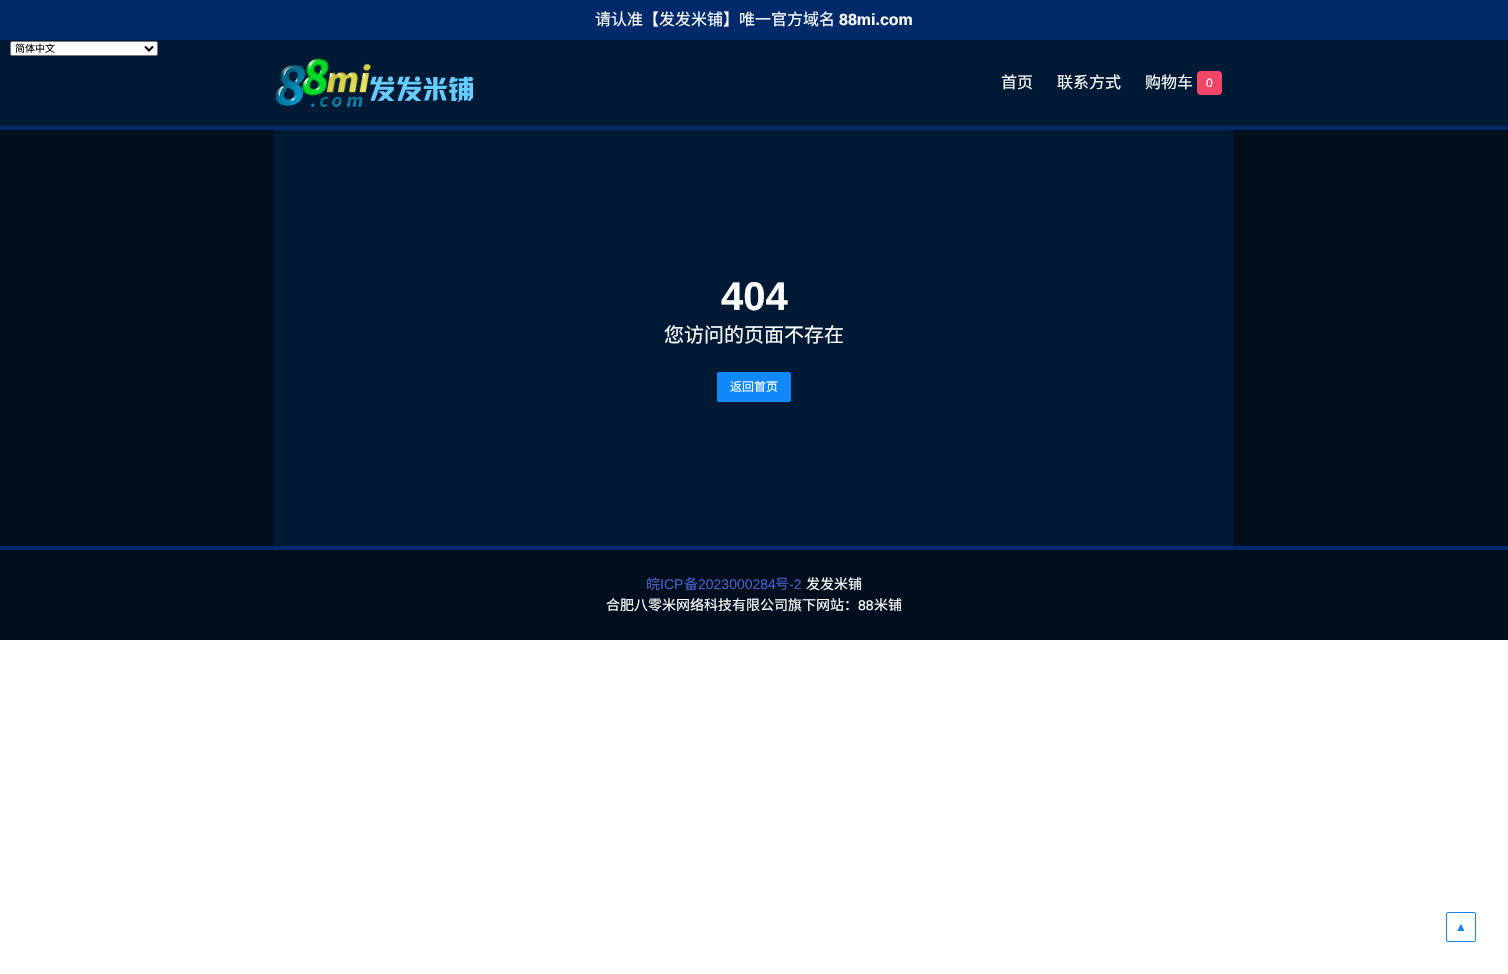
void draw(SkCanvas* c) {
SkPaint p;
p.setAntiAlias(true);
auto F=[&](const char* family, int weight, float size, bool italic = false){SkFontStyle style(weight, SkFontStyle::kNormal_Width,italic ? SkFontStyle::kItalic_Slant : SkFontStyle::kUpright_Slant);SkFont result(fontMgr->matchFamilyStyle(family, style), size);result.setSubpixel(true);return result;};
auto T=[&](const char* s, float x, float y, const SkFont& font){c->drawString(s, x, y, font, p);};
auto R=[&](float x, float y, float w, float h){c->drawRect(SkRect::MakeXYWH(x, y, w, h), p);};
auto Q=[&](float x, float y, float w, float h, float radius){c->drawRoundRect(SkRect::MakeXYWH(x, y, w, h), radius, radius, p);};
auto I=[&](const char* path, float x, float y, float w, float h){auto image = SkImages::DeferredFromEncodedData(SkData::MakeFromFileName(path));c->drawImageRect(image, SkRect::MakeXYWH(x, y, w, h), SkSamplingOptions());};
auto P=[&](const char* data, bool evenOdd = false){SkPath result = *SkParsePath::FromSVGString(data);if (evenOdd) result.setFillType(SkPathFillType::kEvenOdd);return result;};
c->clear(0xffffffff);
p.setColor(0xff000e1d);
R(0,130,1508,510);
p.setColor(0xff022a6b);
R(0,0,1508,40);
auto f1 = F("Noto Sans CJK SC",400,16);
p.setColor(0xffffffff);
T("请认准【发发米铺】唯一官方域名",595,25,f1);
auto f2 = F("Liberation Sans",700,16);
T("88mi.com",839,25,f2);
p.setColor(0xff001a35);
R(0,40,1508,86);
p.setColor(0xffffffff);
c->drawRoundRect(SkRect::MakeXYWH(10.5,41.5,147,14),1.5,1.5,p);
p.setStroke(true);
p.setStrokeWidth(1);
p.setColor(0xff767676);
c->drawRoundRect(SkRect::MakeXYWH(10.5,41.5,147,14),1.5,1.5,p);
p.setStrokeWidth(2);
p.setColor(0xff000000);
c->drawPath(P("M145 46.5l4 4l4-4"),p);
auto f3 = F("Noto Sans CJK SC",400,10);
p.setStroke(false);
T("简体中文",15,52,f3);
I("1.png",275,57,199,51);
p.setColor(0xffffffff);
T("首页",1001,88,f1);
T("联系方式",1057,88,f1);
T("购物车",1145,88,f1);
p.setColor(0xfff14668);
Q(1197,71,25,24,4);
auto f4 = F("Liberation Sans",400,12);
p.setColor(0xffffffff);
T("0",1206,87,f4);
p.setColor(0xff022a6b);
R(0,126,1508,4);
p.setColor(0xff001a35);
R(274,130,960,416);
auto f5 = F("Liberation Sans",700,40);
p.setColor(0xffffffff);
T("404",721,310,f5);
auto f6 = F("Noto Sans CJK SC",400,20);
T("您访问的页面不存在",664,342,f6);
p.setColor(0xff1088f9);
Q(717,372,74,30,2);
auto f7 = F("Noto Sans CJK SC",400,12);
p.setColor(0xffffffff);
T("返回首页",730,391,f7);
p.setColor(0xff022a6b);
R(0,546,1508,4);
auto f8 = F("Noto Sans CJK SC",400,14);
p.setColor(0xff485fc7);
T("皖",646,589,f8);
auto f9 = F("Liberation Sans",400,14);
T("ICP",660,589,f9);
T("备",684,589,f8);
T("2023000284",698,589,f9);
T("号",775,589,f8);
T("-2",789,589,f9);
p.setColor(0xffffffff);
T("发发米铺",806,589,f8);
T("合肥八零米网络科技有限公司旗下网站：",606,610,f8);
T("88",858,610,f9);
T("米铺",874,610,f8);
p.setStroke(true);
p.setStrokeWidth(1);
p.setColor(0xff1783e8);
c->drawRoundRect(SkRect::MakeXYWH(1446.5,912.5,29,29),1.5,1.5,p);
p.setStroke(false);
T("▲",1455,931,f4);
}
